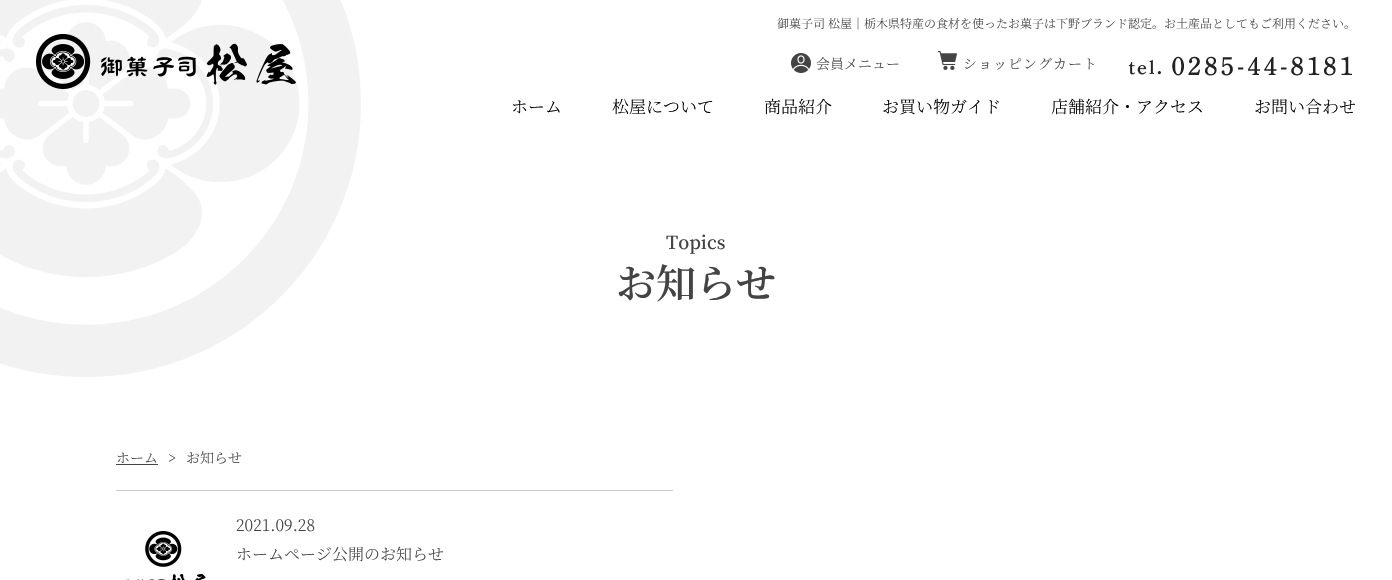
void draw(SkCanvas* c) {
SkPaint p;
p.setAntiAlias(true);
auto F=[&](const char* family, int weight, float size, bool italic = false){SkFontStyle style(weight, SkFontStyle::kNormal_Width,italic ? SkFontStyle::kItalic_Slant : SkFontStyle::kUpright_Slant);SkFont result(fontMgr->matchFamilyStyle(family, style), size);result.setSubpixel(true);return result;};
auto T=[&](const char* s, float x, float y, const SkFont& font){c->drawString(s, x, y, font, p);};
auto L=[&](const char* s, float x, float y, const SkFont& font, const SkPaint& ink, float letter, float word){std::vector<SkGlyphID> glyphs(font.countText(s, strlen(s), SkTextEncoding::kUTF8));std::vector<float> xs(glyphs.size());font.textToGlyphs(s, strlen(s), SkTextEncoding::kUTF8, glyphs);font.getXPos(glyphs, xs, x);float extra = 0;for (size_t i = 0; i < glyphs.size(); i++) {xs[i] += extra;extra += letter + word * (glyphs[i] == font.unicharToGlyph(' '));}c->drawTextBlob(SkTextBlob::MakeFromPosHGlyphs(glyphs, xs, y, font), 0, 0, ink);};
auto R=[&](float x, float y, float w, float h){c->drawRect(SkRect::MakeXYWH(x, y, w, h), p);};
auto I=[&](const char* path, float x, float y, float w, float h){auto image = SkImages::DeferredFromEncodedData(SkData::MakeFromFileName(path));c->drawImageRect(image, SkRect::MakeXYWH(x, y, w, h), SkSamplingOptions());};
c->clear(0xffffffff);
auto f1 = F("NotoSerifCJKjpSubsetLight",300,12);
p.setColor(0xff444444);
T("御菓子司 松屋｜栃木県特産の食材を使ったお菓子は下野ブランド認定。お土産品としてもご利用ください。",777,28,f1);
I("5.png",0,0,361,377);
I("1.png",36,34,260,55);
I("2.png",791,53,20,20);
auto f2 = F("NotoSerifCJKjpSubsetLight",300,14);
T("会員メニュー",816,69,f2);
I("3.png",938,51,19,19);
L("ショッピングカート",963,69,f2,p,1,0);
I("4.png",1128,56,224,20);
auto f3 = F("NotoSerifCJKjpSubsetLight",300,17);
p.setColor(0xff000000);
T("ホーム",511,113,f3);
T("松屋について",612,113,f3);
T("商品紹介",764,113,f3);
T("お買い物ガイド",882,113,f3);
T("店舗紹介・アクセス",1051,113,f3);
T("お問い合わせ",1254,113,f3);
auto f4 = F("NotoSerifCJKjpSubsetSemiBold",600,18);
p.setColor(0xff444444);
T("Topics",666,249,f4);
auto f5 = F("NotoSerifCJKjpSubsetSemiBold",600,40);
T("お知らせ",616,298,f5);
T("ホーム",116,463,f2);
R(116,464,42,1);
T(">",168,463,f2);
T("お知らせ",186,463,f2);
p.setColor(0xffcccccc);
R(116,490,557,1);
I("6.png",126,531,80,49);
auto f6 = F("NotoSerifCJKjpSubsetLight",300,16);
p.setColor(0xff444444);
T("2021.09.28",236,531,f6);
T("ホームページ公開のお知らせ",236,560,f6);
}
